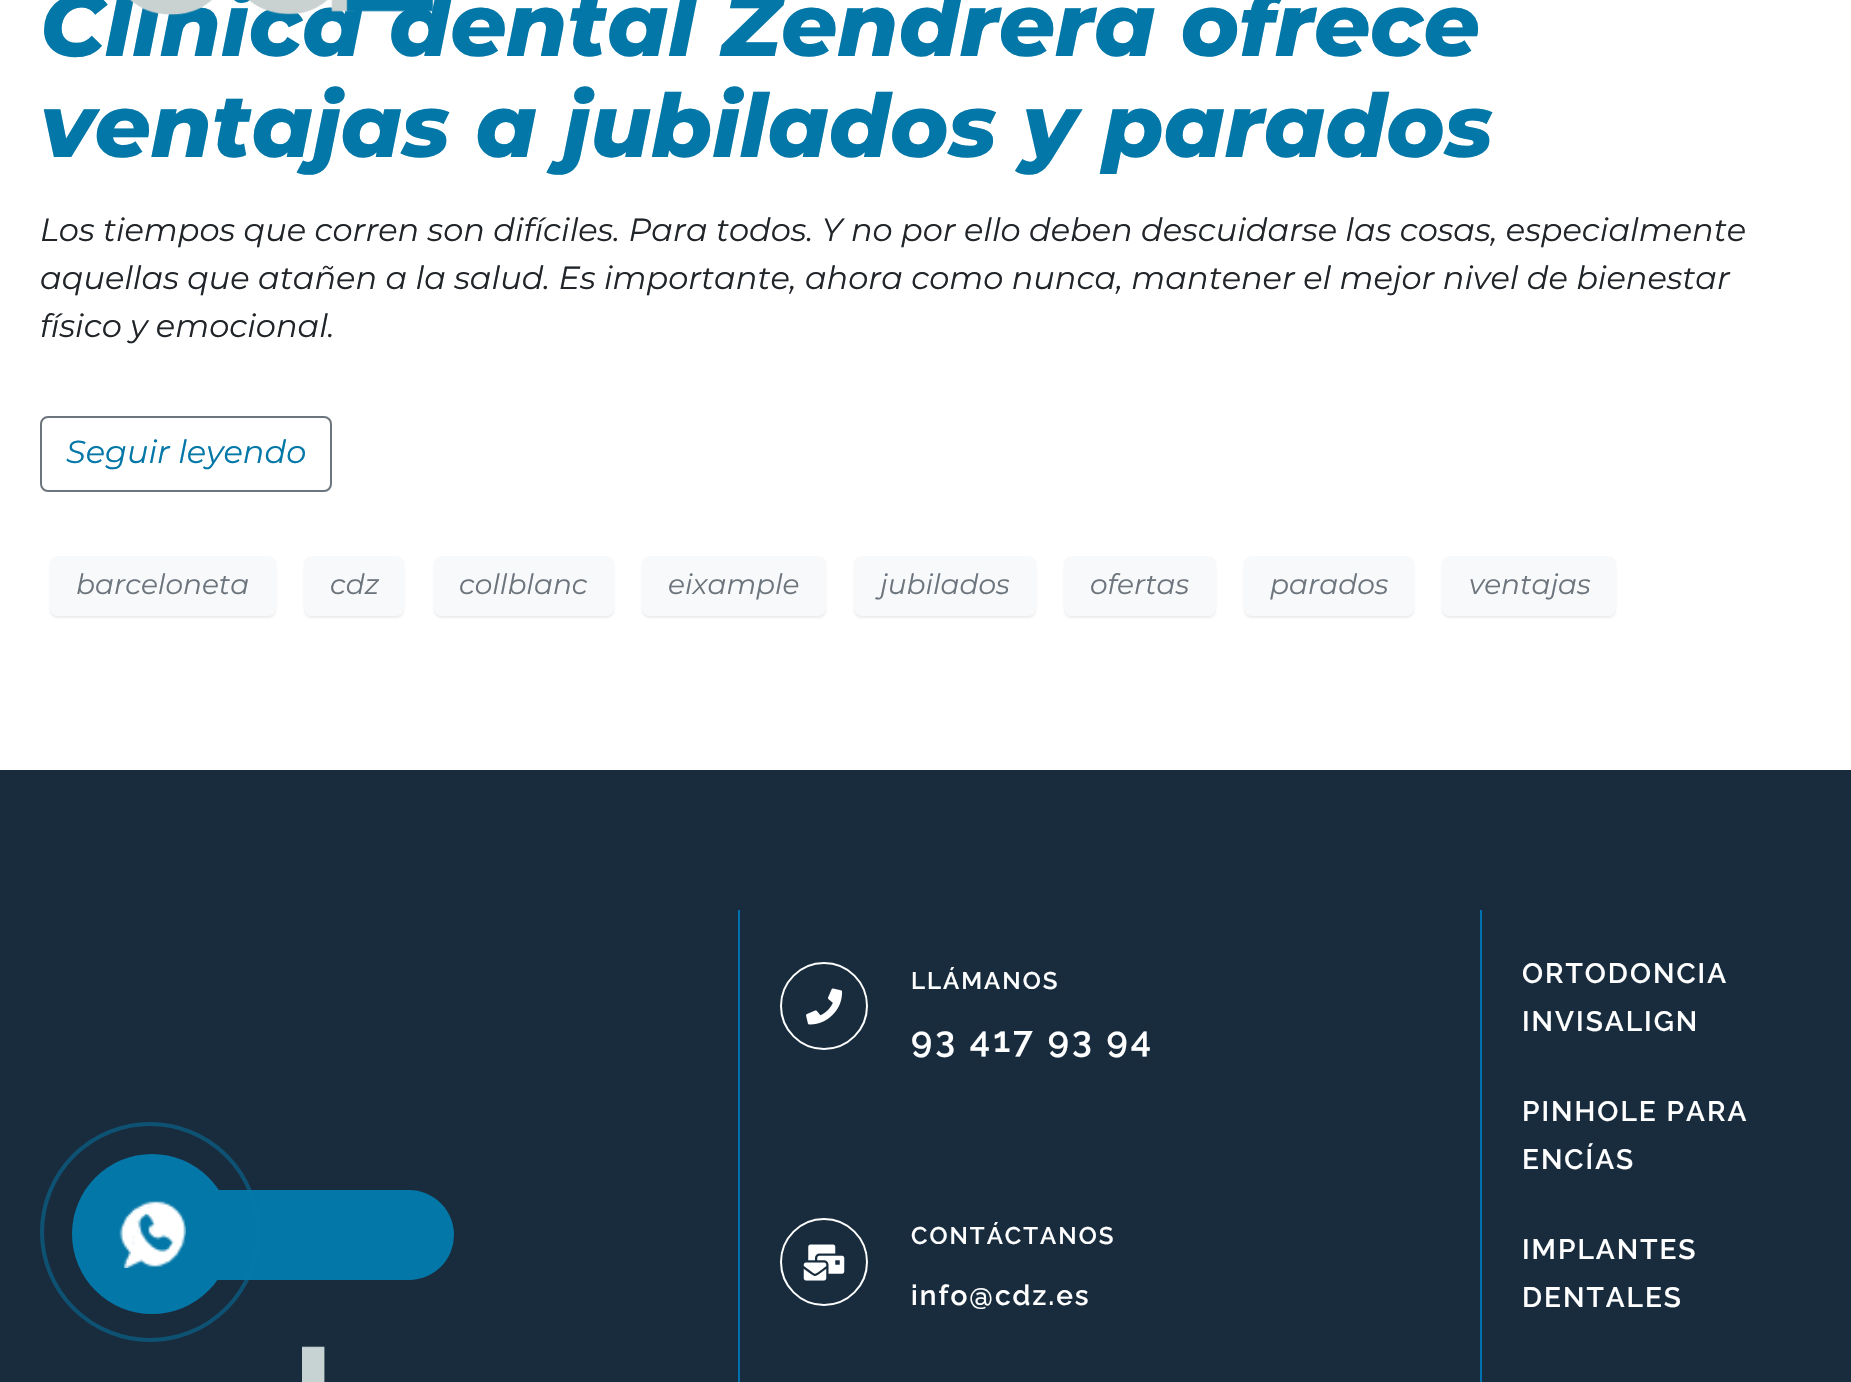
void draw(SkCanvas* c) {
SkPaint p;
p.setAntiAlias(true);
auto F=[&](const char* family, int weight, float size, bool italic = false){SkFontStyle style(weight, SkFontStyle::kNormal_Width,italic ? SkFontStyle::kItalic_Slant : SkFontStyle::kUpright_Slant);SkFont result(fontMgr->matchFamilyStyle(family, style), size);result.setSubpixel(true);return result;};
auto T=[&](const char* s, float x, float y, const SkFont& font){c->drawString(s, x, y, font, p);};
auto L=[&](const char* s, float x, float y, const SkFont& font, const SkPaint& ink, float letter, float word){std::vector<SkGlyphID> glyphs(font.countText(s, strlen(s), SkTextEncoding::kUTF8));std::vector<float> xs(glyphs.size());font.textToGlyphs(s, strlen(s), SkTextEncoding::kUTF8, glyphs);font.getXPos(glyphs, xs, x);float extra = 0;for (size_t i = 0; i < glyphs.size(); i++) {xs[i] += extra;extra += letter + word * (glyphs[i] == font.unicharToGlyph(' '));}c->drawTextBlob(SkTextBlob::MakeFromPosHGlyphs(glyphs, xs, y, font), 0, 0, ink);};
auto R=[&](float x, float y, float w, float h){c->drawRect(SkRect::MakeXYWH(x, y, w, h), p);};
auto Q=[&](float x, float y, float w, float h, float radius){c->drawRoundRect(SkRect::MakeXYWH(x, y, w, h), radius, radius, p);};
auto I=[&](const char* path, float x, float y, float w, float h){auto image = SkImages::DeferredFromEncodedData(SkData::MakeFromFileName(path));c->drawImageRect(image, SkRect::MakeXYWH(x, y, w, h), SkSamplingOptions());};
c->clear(0xffffffff);
auto f1 = F("Montserrat",800,88,true);
p.setColor(0xff0377a7);
T("Clínica dental Zendrera ofrece",40,56,f1);
T("ventajas a jubilados y parados",40,157,f1);
auto f2 = F("Montserrat",400,32,true);
p.setColor(0xff212529);
T("Los tiempos que corren son difíciles. Para todos. Y no por ello deben descuidarse las cosas, especialmente",40,241,f2);
T("aquellas que atañen a la salud. Es importante, ahora como nunca, mantener el mejor nivel de bienestar",40,289,f2);
T("físico y emocional.",40,337,f2);
p.setStroke(true);
p.setStrokeWidth(2);
p.setColor(0xff6c757d);
c->drawRoundRect(SkRect::MakeXYWH(41,417,290,74),7,7,p);
p.setStroke(false);
p.setColor(0xff0377a7);
T("Seguir leyendo",66,463,f2);
p.setColor(0x12000000);
p.setMaskFilter(SkMaskFilter::MakeBlur(kNormal_SkBlurStyle, 1));
c->drawRoundRect(SkRect::MakeXYWH(50,558,226,60),8,8,p);
p.setMaskFilter(nullptr);
p.setColor(0xfff8f9fa);
c->drawRoundRect(SkRect::MakeXYWH(51,557,224,58),7,7,p);
p.setStroke(true);
c->drawRoundRect(SkRect::MakeXYWH(51,557,224,58),7,7,p);
auto f3 = F("Montserrat",400,28,true);
p.setStroke(false);
p.setColor(0xff6c757d);
T("barceloneta",76,594,f3);
p.setColor(0x12000000);
p.setMaskFilter(SkMaskFilter::MakeBlur(kNormal_SkBlurStyle, 1));
c->drawRoundRect(SkRect::MakeXYWH(304,558,100,60),8,8,p);
p.setMaskFilter(nullptr);
p.setColor(0xfff8f9fa);
c->drawRoundRect(SkRect::MakeXYWH(305,557,98,58),7,7,p);
p.setStroke(true);
c->drawRoundRect(SkRect::MakeXYWH(305,557,98,58),7,7,p);
p.setStroke(false);
p.setColor(0xff6c757d);
T("cdz",330,594,f3);
p.setColor(0x12000000);
p.setMaskFilter(SkMaskFilter::MakeBlur(kNormal_SkBlurStyle, 1));
c->drawRoundRect(SkRect::MakeXYWH(434,558,180,60),8,8,p);
p.setMaskFilter(nullptr);
p.setColor(0xfff8f9fa);
c->drawRoundRect(SkRect::MakeXYWH(435,557,178,58),7,7,p);
p.setStroke(true);
c->drawRoundRect(SkRect::MakeXYWH(435,557,178,58),7,7,p);
p.setStroke(false);
p.setColor(0xff6c757d);
T("collblanc",459,594,f3);
p.setColor(0x12000000);
p.setMaskFilter(SkMaskFilter::MakeBlur(kNormal_SkBlurStyle, 1));
c->drawRoundRect(SkRect::MakeXYWH(642,558,184,60),8,8,p);
p.setMaskFilter(nullptr);
p.setColor(0xfff8f9fa);
c->drawRoundRect(SkRect::MakeXYWH(643,557,182,58),7,7,p);
p.setStroke(true);
c->drawRoundRect(SkRect::MakeXYWH(643,557,182,58),7,7,p);
p.setStroke(false);
p.setColor(0xff6c757d);
T("eixample",668,594,f3);
p.setColor(0x12000000);
p.setMaskFilter(SkMaskFilter::MakeBlur(kNormal_SkBlurStyle, 1));
c->drawRoundRect(SkRect::MakeXYWH(854,558,182,60),8,8,p);
p.setMaskFilter(nullptr);
p.setColor(0xfff8f9fa);
c->drawRoundRect(SkRect::MakeXYWH(855,557,180,58),7,7,p);
p.setStroke(true);
c->drawRoundRect(SkRect::MakeXYWH(855,557,180,58),7,7,p);
p.setStroke(false);
p.setColor(0xff6c757d);
T("jubilados",880,594,f3);
p.setColor(0x12000000);
p.setMaskFilter(SkMaskFilter::MakeBlur(kNormal_SkBlurStyle, 1));
c->drawRoundRect(SkRect::MakeXYWH(1064,558,152,60),8,8,p);
p.setMaskFilter(nullptr);
p.setColor(0xfff8f9fa);
c->drawRoundRect(SkRect::MakeXYWH(1065,557,150,58),7,7,p);
p.setStroke(true);
c->drawRoundRect(SkRect::MakeXYWH(1065,557,150,58),7,7,p);
p.setStroke(false);
p.setColor(0xff6c757d);
T("ofertas",1090,594,f3);
p.setColor(0x12000000);
p.setMaskFilter(SkMaskFilter::MakeBlur(kNormal_SkBlurStyle, 1));
c->drawRoundRect(SkRect::MakeXYWH(1244,558,170,60),8,8,p);
p.setMaskFilter(nullptr);
p.setColor(0xfff8f9fa);
c->drawRoundRect(SkRect::MakeXYWH(1245,557,168,58),7,7,p);
p.setStroke(true);
c->drawRoundRect(SkRect::MakeXYWH(1245,557,168,58),7,7,p);
p.setStroke(false);
p.setColor(0xff6c757d);
T("parados",1270,594,f3);
p.setColor(0x12000000);
p.setMaskFilter(SkMaskFilter::MakeBlur(kNormal_SkBlurStyle, 1));
c->drawRoundRect(SkRect::MakeXYWH(1442,558,174,60),8,8,p);
p.setMaskFilter(nullptr);
p.setColor(0xfff8f9fa);
c->drawRoundRect(SkRect::MakeXYWH(1443,557,172,58),7,7,p);
p.setStroke(true);
c->drawRoundRect(SkRect::MakeXYWH(1443,557,172,58),7,7,p);
p.setStroke(false);
p.setColor(0xff6c757d);
T("ventajas",1469,594,f3);
I("1.png",129,0,305,16);
p.setColor(0xff182c3e);
R(0,770,1851,612);
p.setColor(0xff0071b0);
R(738,910,2,472);
I("2.png",302,1346,23,36);
R(1480,910,2,472);
p.setStroke(true);
p.setColor(0xffffffff);
c->drawCircle(824,1006,43,p);
I("3.png",806,988,37,37);
auto f4 = F("Raleway",600,24);
p.setStroke(false);
L("LLÁMANOS",911,989,f4,p,2,0);
auto f5 = F("Raleway",600,36);
L("93 417 93 94",911,1052,f5,p,3,0);
p.setStroke(true);
c->drawCircle(824,1262,43,p);
I("4.png",803,1244,42,37);
p.setStroke(false);
L("CONTÁCTANOS",911,1244,f4,p,2,0);
auto f6 = F("Raleway",600,28);
L("info@cdz.es",911,1305,f6,p,2,0);
L("ORTODONCIA",1522,983,f6,p,2,0);
L("INVISALIGN",1522,1031,f6,p,2,0);
L("PINHOLE PARA",1522,1121,f6,p,2,0);
L("ENCÍAS",1522,1169,f6,p,2,0);
L("IMPLANTES",1522,1259,f6,p,2,0);
L("DENTALES",1522,1307,f6,p,2,0);
p.setColor(0xff0377a7);
Q(124,1190,330,90,45);
p.setStroke(true);
p.setStrokeWidth(4);
p.setColor(0x800377a7);
c->drawCircle(150,1232,108,p);
p.setStroke(false);
p.setColor(0xff0377a7);
c->drawCircle(152,1234,80,p);
I("5.png",119,1200,67,68);
}
